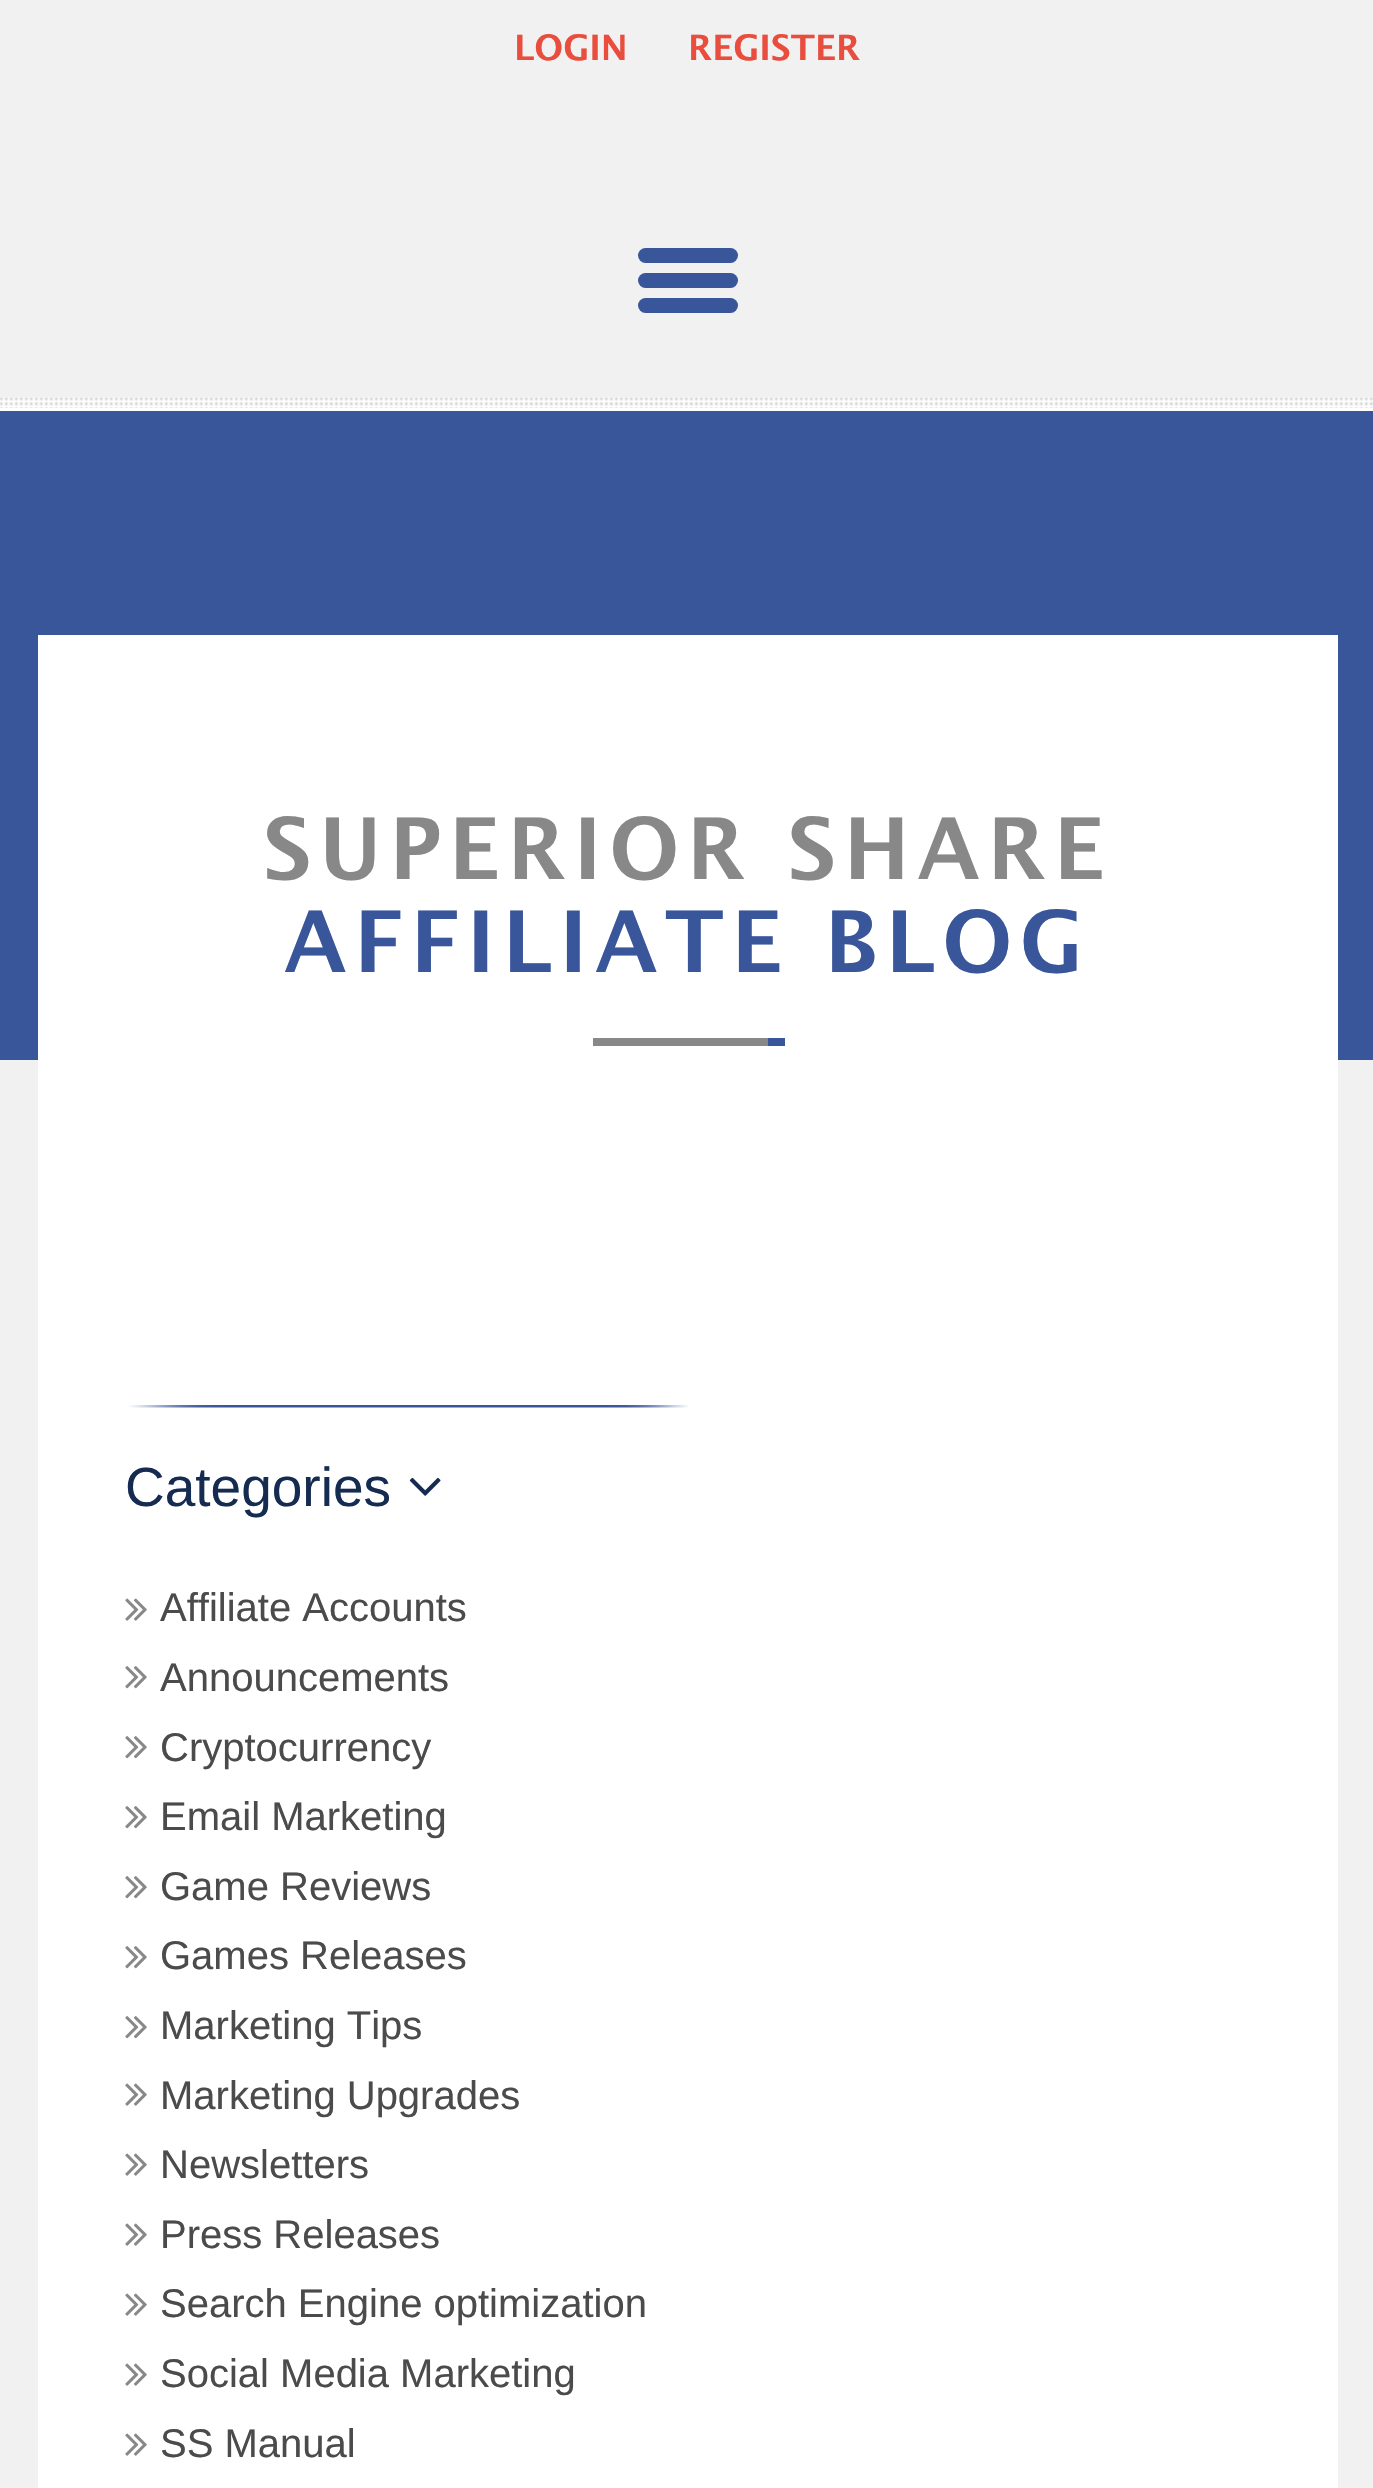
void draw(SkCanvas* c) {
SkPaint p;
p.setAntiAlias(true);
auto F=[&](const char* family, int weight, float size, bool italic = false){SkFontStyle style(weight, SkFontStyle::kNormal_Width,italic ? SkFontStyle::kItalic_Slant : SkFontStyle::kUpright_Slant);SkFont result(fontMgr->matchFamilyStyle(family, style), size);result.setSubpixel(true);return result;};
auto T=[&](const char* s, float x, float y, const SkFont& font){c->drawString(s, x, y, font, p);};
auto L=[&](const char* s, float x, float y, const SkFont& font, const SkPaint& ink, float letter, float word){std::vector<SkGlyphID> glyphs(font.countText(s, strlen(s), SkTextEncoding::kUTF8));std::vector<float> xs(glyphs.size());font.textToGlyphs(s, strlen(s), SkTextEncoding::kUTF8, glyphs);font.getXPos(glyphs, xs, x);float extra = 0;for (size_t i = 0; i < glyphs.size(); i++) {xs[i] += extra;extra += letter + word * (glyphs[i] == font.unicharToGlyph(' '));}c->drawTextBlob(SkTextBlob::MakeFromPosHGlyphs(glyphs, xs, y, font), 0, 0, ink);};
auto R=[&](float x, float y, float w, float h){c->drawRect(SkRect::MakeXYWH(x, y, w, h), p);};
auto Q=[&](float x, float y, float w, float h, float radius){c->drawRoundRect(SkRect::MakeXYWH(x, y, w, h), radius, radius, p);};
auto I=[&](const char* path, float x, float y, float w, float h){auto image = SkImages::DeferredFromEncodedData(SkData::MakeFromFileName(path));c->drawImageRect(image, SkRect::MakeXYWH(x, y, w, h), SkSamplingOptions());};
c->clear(0xfff1f1f1);
auto f1 = F("Lucida Grande",700,35);
p.setColor(0xffe94d3d);
T("LOGIN",514,60,f1);
T("REGISTER",688,60,f1);
p.setColor(0xff3a569a);
Q(638,248,100,15,7.5);
Q(638,273,100,15,7.5);
Q(638,298,100,15,7.5);
I("1.png",0,397,1373,11);
p.setColor(0xffffffff);
R(0,408,1373,3);
p.setColor(0xff3a569a);
R(0,411,1373,649);
p.setColor(0xffffffff);
R(38,635,1300,1853);
auto f2 = F("Lucida Grande",700,85);
p.setColor(0xff888888);
L("SUPERIOR SHARE",263,879,f2,p,7.5,0);
p.setColor(0xff3a569a);
L("AFFILIATE BLOG",284,972,f2,p,7.5,0);
p.setColor(0xff888888);
R(593,1038,175,8);
p.setColor(0xff3a569a);
R(768,1038,17,8);
I("2.png",129,1405,559,3);
auto f3 = F("Liberation Sans",400,55);
p.setColor(0xff162b51);
T("Categories",125,1506,f3);
I("3.png",409,1477,32,19);
I("4.png",125,1598,22,23);
auto f4 = F("Liberation Sans",400,40);
p.setColor(0xff4c4b4b);
T("Affiliate Accounts",160,1621,f4);
I("5.png",125,1666,22,23);
T("Announcements",160,1691,f4);
I("5.png",125,1736,22,23);
T("Cryptocurrency",160,1761,f4);
I("5.png",125,1806,22,23);
T("Email Marketing",160,1830,f4);
I("5.png",125,1876,22,23);
T("Game Reviews",160,1900,f4);
I("5.png",125,1946,22,23);
T("Games Releases",160,1969,f4);
I("5.png",125,2016,22,23);
T("Marketing Tips",160,2039,f4);
I("4.png",125,2083,22,23);
T("Marketing Upgrades",160,2109,f4);
I("4.png",125,2153,22,23);
T("Newsletters",160,2178,f4);
I("4.png",125,2223,22,23);
T("Press Releases",160,2248,f4);
I("4.png",125,2293,22,23);
T("Search Engine optimization",160,2317,f4);
I("4.png",125,2363,22,23);
T("Social Media Marketing",160,2387,f4);
I("4.png",125,2433,22,23);
T("SS Manual",160,2457,f4);
}
